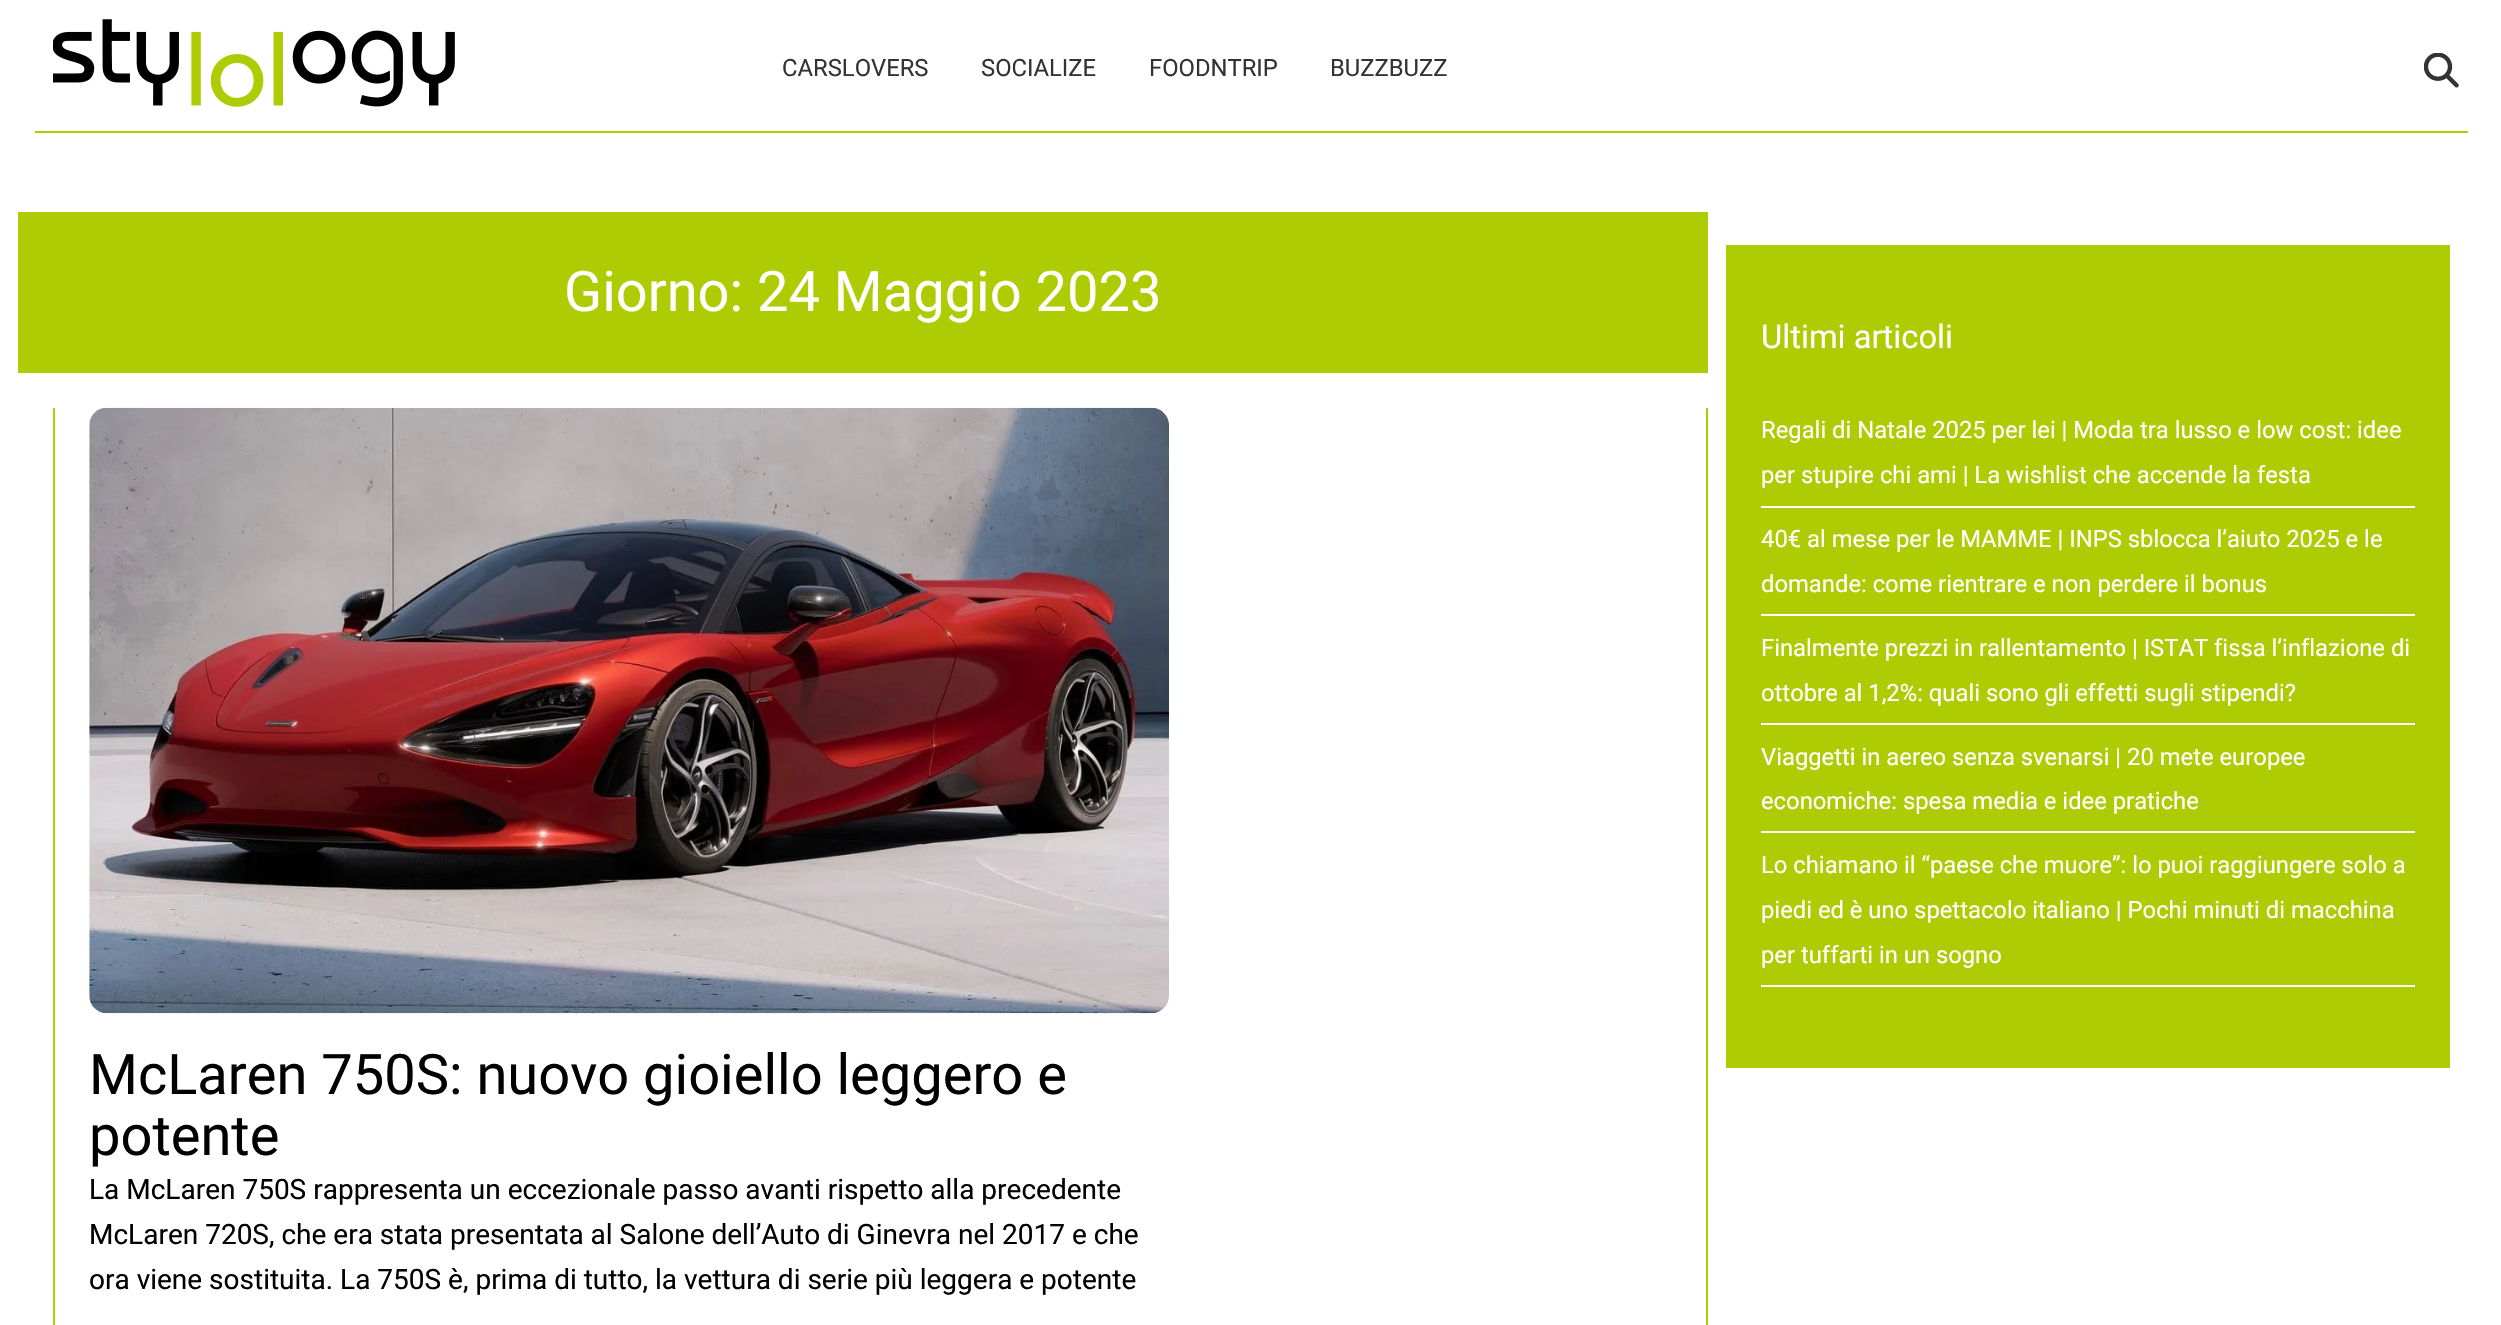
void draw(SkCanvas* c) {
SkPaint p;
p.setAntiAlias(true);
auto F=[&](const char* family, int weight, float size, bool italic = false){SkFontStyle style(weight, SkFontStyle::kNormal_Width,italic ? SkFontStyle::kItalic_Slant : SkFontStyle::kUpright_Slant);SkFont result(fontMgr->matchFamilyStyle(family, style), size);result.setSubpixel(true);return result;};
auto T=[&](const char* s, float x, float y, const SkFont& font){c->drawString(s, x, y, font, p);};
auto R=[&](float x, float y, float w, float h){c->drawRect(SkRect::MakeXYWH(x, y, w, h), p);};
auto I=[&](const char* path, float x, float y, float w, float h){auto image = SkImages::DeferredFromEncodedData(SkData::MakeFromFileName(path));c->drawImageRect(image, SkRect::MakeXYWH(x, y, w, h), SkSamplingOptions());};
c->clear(0xffffffff);
p.setColor(0xffadcc03);
R(35,131,2433,2);
I("1.png",53,19,402,88);
auto f1 = F("Roboto",400,23.8);
p.setColor(0xff333333);
T("CARSLOVERS",782,76,f1);
T("SOCIALIZE",981,76,f1);
T("FOODNTRIP",1149,76,f1);
T("BUZZBUZZ",1330,76,f1);
I("2.png",2424,53,35,35);
p.setColor(0xffadcc03);
R(18,212,1690,161);
auto f2 = F("Roboto",400,56);
p.setColor(0xffffffff);
T("Giorno: 24 Maggio 2023",564,311,f2);
p.setColor(0xffadcc03);
R(1706,408,2,917);
R(53,408,2,917);
I("3.png",89,407,1080,607);
p.setColor(0xff000000);
T("McLaren 750S: nuovo gioiello leggero e",89,1094,f2);
T("potente",89,1155,f2);
auto f3 = F("Roboto",400,28);
T("La McLaren 750S rappresenta un eccezionale passo avanti rispetto alla precedente",89,1199,f3);
T("McLaren 720S, che era stata presentata al Salone dell’Auto di Ginevra nel 2017 e che",89,1244,f3);
T("ora viene sostituita. La 750S è, prima di tutto, la vettura di serie più leggera e potente",89,1289,f3);
p.setColor(0xffadcc03);
R(1726,245,724,823);
auto f4 = F("Roboto",400,32.75);
p.setColor(0xffffffff);
T("Ultimi articoli",1761,348,f4);
R(1761,506,654,2);
T("Regali di Natale 2025 per lei | Moda tra lusso e low cost: idee",1761,438,f1);
T("per stupire chi ami | La wishlist che accende la festa",1761,483,f1);
R(1761,614,654,2);
T("40€ al mese per le MAMME | INPS sblocca l’aiuto 2025 e le",1761,547,f1);
T("domande: come rientrare e non perdere il bonus",1761,592,f1);
R(1761,723,654,2);
T("Finalmente prezzi in rallentamento | ISTAT fissa l’inflazione di",1761,656,f1);
T("ottobre al 1,2%: quali sono gli effetti sugli stipendi?",1761,701,f1);
R(1761,831,654,2);
T("Viaggetti in aereo senza svenarsi | 20 mete europee",1761,765,f1);
T("economiche: spesa media e idee pratiche",1761,809,f1);
R(1761,985,654,2);
T("Lo chiamano il “paese che muore”: lo puoi raggiungere solo a",1761,873,f1);
T("piedi ed è uno spettacolo italiano | Pochi minuti di macchina",1761,918,f1);
T("per tuffarti in un sogno",1761,963,f1);
}
